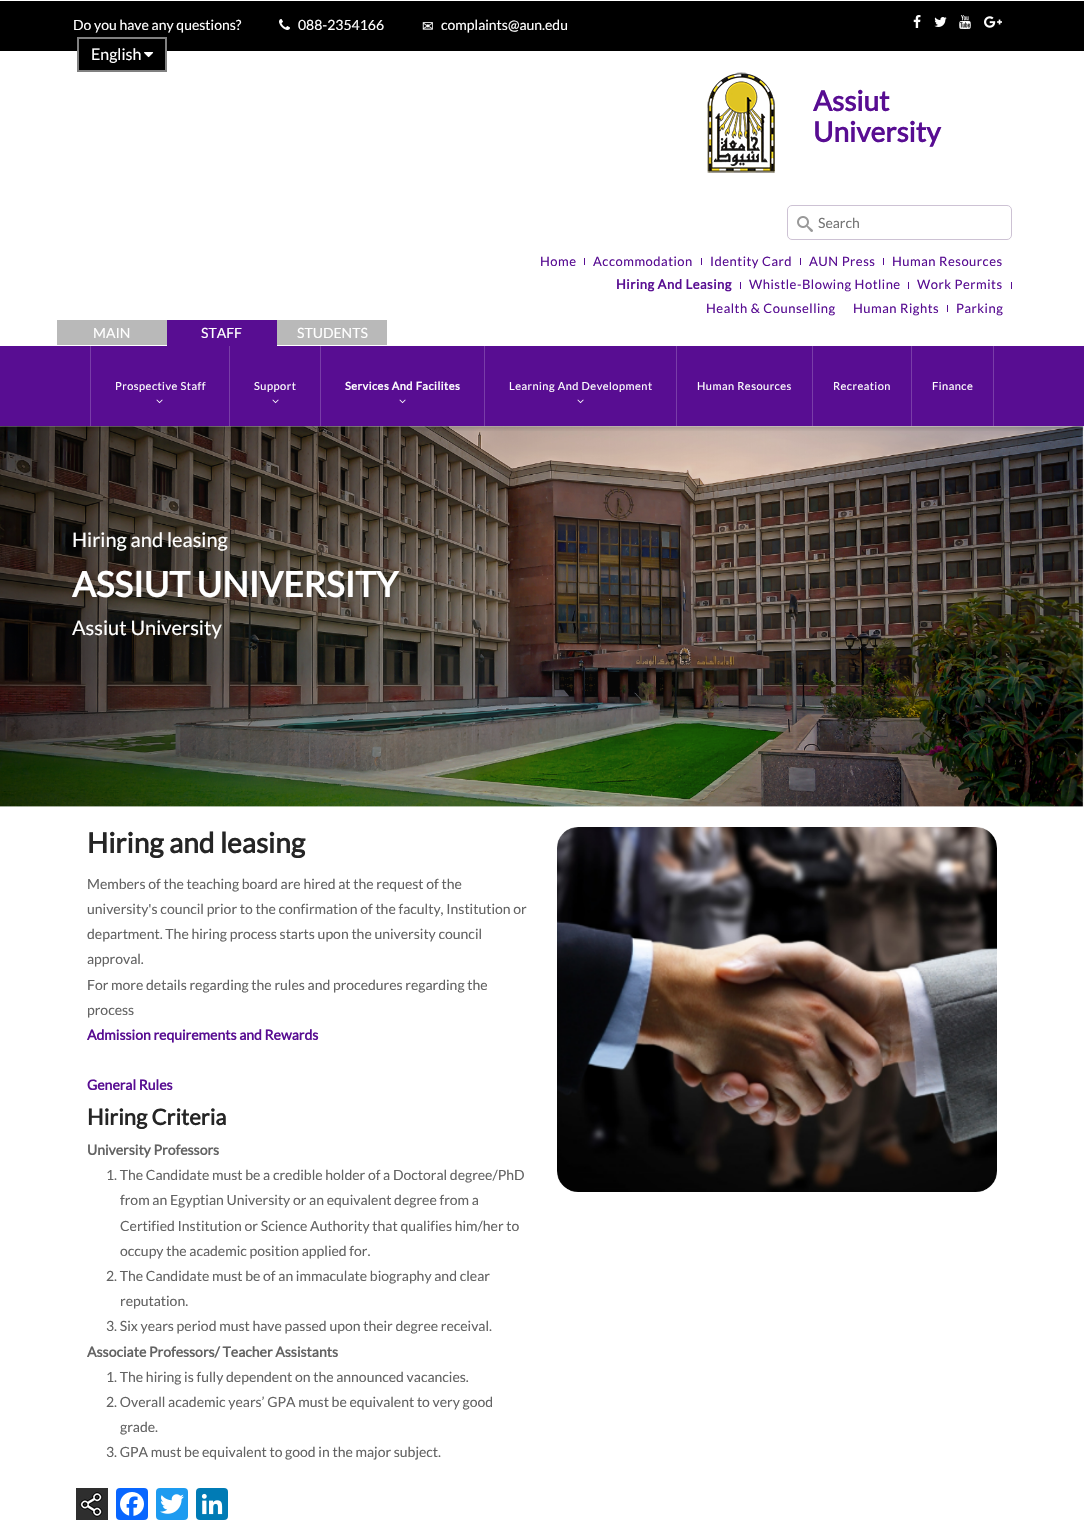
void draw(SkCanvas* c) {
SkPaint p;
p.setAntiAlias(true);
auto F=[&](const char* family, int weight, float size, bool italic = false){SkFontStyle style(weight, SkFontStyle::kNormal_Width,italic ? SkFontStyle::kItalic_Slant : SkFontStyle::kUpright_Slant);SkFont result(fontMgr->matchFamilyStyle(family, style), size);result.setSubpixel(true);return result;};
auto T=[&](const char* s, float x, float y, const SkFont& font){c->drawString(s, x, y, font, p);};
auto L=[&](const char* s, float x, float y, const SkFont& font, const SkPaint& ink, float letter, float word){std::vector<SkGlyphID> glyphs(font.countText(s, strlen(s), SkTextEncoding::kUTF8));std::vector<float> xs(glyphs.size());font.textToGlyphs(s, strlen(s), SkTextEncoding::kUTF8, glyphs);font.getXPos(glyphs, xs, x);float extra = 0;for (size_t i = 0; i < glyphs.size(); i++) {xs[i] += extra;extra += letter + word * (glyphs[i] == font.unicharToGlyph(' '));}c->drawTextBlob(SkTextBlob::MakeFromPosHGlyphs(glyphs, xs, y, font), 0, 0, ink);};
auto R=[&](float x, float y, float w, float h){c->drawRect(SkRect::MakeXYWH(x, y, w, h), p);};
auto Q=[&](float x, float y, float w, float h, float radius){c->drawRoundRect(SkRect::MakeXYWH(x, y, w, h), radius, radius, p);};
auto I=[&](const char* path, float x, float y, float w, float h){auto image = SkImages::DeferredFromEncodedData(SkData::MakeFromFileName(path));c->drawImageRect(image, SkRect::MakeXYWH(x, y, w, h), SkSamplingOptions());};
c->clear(0xffffffff);
p.setColor(0xfff8f8f8);
R(0,426,1084,381);
I("10.png",0,426,1083,381);
c->save();
c->clipRect(SkRect::MakeXYWH(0,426,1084,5));
p.setColor(0x24000000);
p.setMaskFilter(SkMaskFilter::MakeBlur(kNormal_SkBlurStyle, 2));
c->drawRect(SkRect::MakeXYWH(0,4,1084,425),p);
p.setMaskFilter(nullptr);
c->restore();
p.setColor(0xff000000);
R(0,1,1084,50);
auto f1 = F("Lato",400,14);
p.setColor(0xffffffff);
T("Do you have any questions?",73,30,f1);
I("1.png",279,19,11,11);
T("088-2354166",298,30,f1);
auto f2 = F("DejaVu Sans",400,14);
T("✉",422,31,f2);
T("complaints@aun.edu",441,30,f1);
p.setColor(0xff000000);
R(79,51,86,19);
p.setStroke(true);
p.setStrokeWidth(2);
p.setColor(0xff808080);
c->drawRect(SkRect::MakeXYWH(78,38,88,33),p);
auto f3 = F("Lato",400,16);
p.setStroke(false);
p.setColor(0xffffffff);
T("English",91,60,f3);
I("2.png",144,52,10,6);
I("3.png",913,15,8,13);
I("4.png",934,17,13,10);
I("5.png",959,15,12,14);
I("6.png",984,16,18,12);
I("7.png",707,72,68,101);
auto f4 = F("Lato",700,28);
p.setColor(0xff580d92);
T("Assiut",813,111,f4);
T("University",813,142,f4);
p.setStroke(true);
p.setStrokeWidth(1);
p.setColor(0xffcdc2d4);
c->drawRoundRect(SkRect::MakeXYWH(787.5,205.5,224,34),4.5,4.5,p);
I("8.png",797,216,16,16);
p.setStroke(false);
p.setColor(0xff757575);
T("Search",818,228,f1);
auto f5 = F("Lato",400,13);
p.setColor(0xff580d92);
L("Home",540,266,f5,p,.5,0);
R(584,258,1,7);
L("Accommodation",593,266,f5,p,.5,0);
R(701,258,1,7);
L("Identity Card",710,266,f5,p,.5,0);
R(800,258,1,7);
L("AUN Press",809,266,f5,p,.5,0);
R(883,258,1,7);
L("Human Resources",892,266,f5,p,.5,0);
auto f6 = F("Lato",700,13);
L("Hiring And Leasing",616,289,f6,p,.5,0);
R(740,282,1,7);
L("Whistle-Blowing Hotline",749,289,f5,p,.5,0);
R(908,282,1,7);
L("Work Permits",917,289,f5,p,.5,0);
R(1011,282,1,7);
L("Health & Counselling",706,313,f5,p,.5,0);
L("Human Rights",853,313,f5,p,.5,0);
R(947,305,1,7);
L("Parking",956,313,f5,p,.5,0);
p.setColor(0xffb9b9b9);
R(57,320,110,25);
p.setColor(0xffffffff);
T("MAIN",93,338,f1);
p.setColor(0xff580d92);
R(167,320,110,26);
p.setColor(0xffffffff);
T("STAFF",201,338,f1);
p.setColor(0xffb9b9b9);
R(277,320,110,25);
p.setColor(0xffffffff);
T("STUDENTS",297,338,f1);
p.setColor(0xff580d92);
R(0,346,1084,80);
p.setColor(0xff793da8);
R(229,346,1,80);
R(90,346,1,80);
auto f7 = F("Lato",400,11);
p.setColor(0xffffffff);
L("Prospective Staff",115,390,f7,p,.5,0);
I("9.png",156,399,7,5);
p.setColor(0xff793da8);
R(320,346,1,80);
p.setColor(0xffffffff);
L("Support",254,390,f7,p,.5,0);
I("9.png",272,399,7,5);
p.setColor(0xff793da8);
R(484,346,1,80);
auto f8 = F("Lato",700,11);
p.setColor(0xffffffff);
L("Services And Facilites",345,390,f8,p,.5,0);
I("9.png",399,399,7,5);
p.setColor(0xff793da8);
R(676,346,1,80);
p.setColor(0xffffffff);
L("Learning And Development",509,390,f7,p,.5,0);
I("9.png",577,399,7,5);
p.setColor(0xff793da8);
R(812,346,1,80);
p.setColor(0xffffffff);
L("Human Resources",697,390,f7,p,.5,0);
p.setColor(0xff793da8);
R(911,346,1,80);
p.setColor(0xffffffff);
L("Recreation",833,390,f7,p,.5,0);
p.setColor(0xff793da8);
R(993,346,1,80);
p.setColor(0xffffffff);
L("Finance",932,390,f7,p,.5,0);
auto f9 = F("Lato",400,20);
T("Hiring and leasing",72,547,f9);
auto f10 = F("Lato",700,35);
T("ASSIUT UNIVERSITY",72,597,f10);
T("Assiut University",72,635,f9);
p.setColor(0xff252525);
T("Hiring and leasing",87,853,f4);
p.setColor(0xff636363);
T("Members of the teaching board are hired at the request of the",87,889,f1);
T("university's council prior to the confirmation of the faculty, Institution or",87,914,f1);
T("department. The hiring process starts upon the university council",87,939,f1);
T("approval.",87,964,f1);
T("For more details regarding the rules and procedures regarding the",87,990,f1);
T("process",87,1015,f1);
auto f11 = F("Lato",700,14);
p.setColor(0xff580d92);
T("Admission requirements and Rewards",87,1040,f11);
T("General Rules",87,1090,f11);
auto f12 = F("Lato",700,22);
p.setColor(0xff252525);
T("Hiring Criteria",87,1125,f12);
p.setColor(0xff636363);
T("University Professors",87,1155,f11);
T("1. The Candidate must be a credible holder of a Doctoral degree/PhD",106,1180,f1);
T("from an Egyptian University or an equivalent degree from a",120,1205,f1);
T("Certified Institution or Science Authority that qualifies him/her to",120,1231,f1);
T("occupy the academic position applied for.",120,1256,f1);
T("2. The Candidate must be of an immaculate biography and clear",106,1281,f1);
T("reputation.",120,1306,f1);
T("3. Six years period must have passed upon their degree receival.",106,1331,f1);
T("Associate Professors/ Teacher Assistants",87,1357,f11);
T("1. The hiring is fully dependent on the announced vacancies.",106,1382,f1);
T("2. Overall academic years’ GPA must be equivalent to very good",106,1407,f1);
T("grade.",120,1432,f1);
T("3. GPA must be equivalent to good in the major subject.",106,1457,f1);
I("11.png",557,827,440,365);
I("12.png",76,1488,32,32);
p.setColor(0xff0866ff);
Q(116,1488,32,32,4);
I("13.png",120,1492,24,24);
p.setColor(0xff1d9bf0);
Q(156,1488,32,32,4);
I("14.png",160,1494,24,20);
p.setColor(0xff007bb5);
Q(196,1488,32,32,4);
I("15.png",201,1493,22,22);
}
